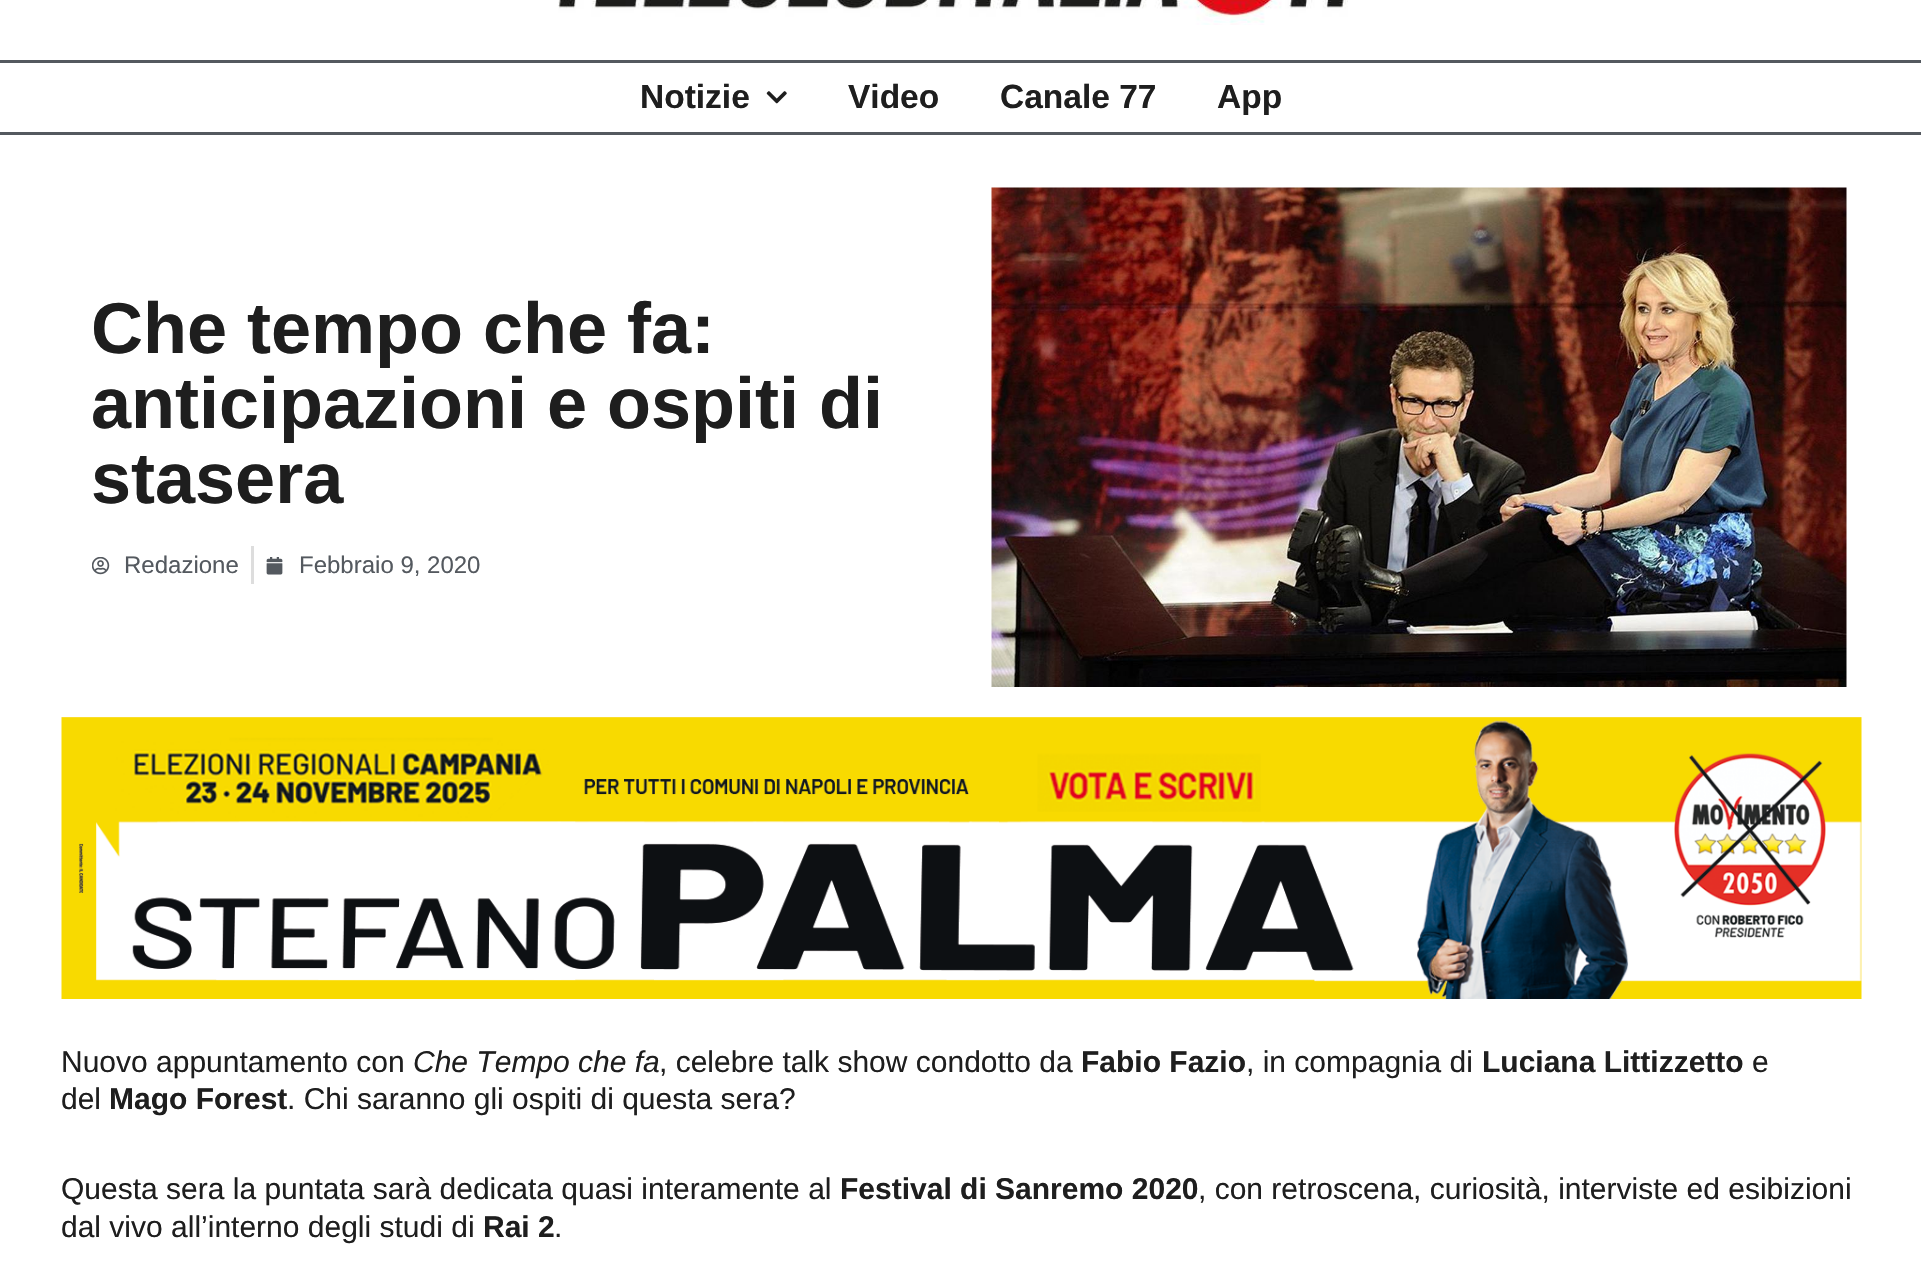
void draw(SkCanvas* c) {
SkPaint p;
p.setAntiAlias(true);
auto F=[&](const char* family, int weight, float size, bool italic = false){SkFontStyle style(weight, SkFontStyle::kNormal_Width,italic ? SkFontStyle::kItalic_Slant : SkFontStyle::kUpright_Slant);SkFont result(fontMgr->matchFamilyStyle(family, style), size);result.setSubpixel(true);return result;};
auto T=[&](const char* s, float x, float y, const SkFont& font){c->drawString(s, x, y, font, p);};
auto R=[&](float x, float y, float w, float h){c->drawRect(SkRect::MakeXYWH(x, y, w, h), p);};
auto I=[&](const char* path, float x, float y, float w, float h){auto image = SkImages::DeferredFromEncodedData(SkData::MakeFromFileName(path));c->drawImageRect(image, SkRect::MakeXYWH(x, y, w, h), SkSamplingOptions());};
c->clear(0xffffffff);
I("1.png",558,0,790,25);
p.setColor(0xff54595f);
R(0,60,1921,3);
R(0,132,1921,3);
auto f1 = F("Liberation Sans",700,33.5);
p.setColor(0xff1e1e1e);
T("Notizie",640,108,f1);
I("2.png",766,91,21,13);
T("Video",848,108,f1);
T("Canale 77",1000,108,f1);
T("App",1217,108,f1);
auto f2 = F("Liberation Sans",700,72);
T("Che tempo che fa:",91,353,f2);
T("anticipazioni e ospiti di",91,428,f2);
T("stasera",91,503,f2);
I("3.png",92,557,18,18);
auto f3 = F("Liberation Sans",400,24);
p.setColor(0xff54595f);
T("Redazione",124,573,f3);
p.setColor(0xffdddddd);
R(251,546,3,38);
I("4.png",266,557,17,18);
p.setColor(0xff54595f);
T("Febbraio 9, 2020",299,573,f3);
I("5.png",991,187,856,500);
I("6.png",61,717,1801,282);
auto f4 = F("Liberation Sans",400,30);
p.setColor(0xff1e1e1e);
T("Nuovo appuntamento con",61,1072,f4);
auto f5 = F("Liberation Sans",400,30,true);
T("Che Tempo che fa",413,1072,f5);
T(", celebre talk show condotto da",659,1072,f4);
auto f6 = F("Liberation Sans",700,30);
T("Fabio Fazio",1081,1072,f6);
T(", in compagnia di",1246,1072,f4);
T("Luciana Littizzetto",1482,1072,f6);
T("e",1752,1072,f4);
T("del",61,1109,f4);
T("Mago Forest",109,1109,f6);
T(". Chi saranno gli ospiti di questa sera?",287,1109,f4);
T("Questa sera la puntata sarà dedicata quasi interamente al",61,1199,f4);
T("Festival di Sanremo 2020",840,1199,f6);
T(", con retroscena, curiosità, interviste ed esibizioni",1198,1199,f4);
T("dal vivo all’interno degli studi di",61,1237,f4);
T("Rai 2",483,1237,f6);
T(".",554,1237,f4);
}
